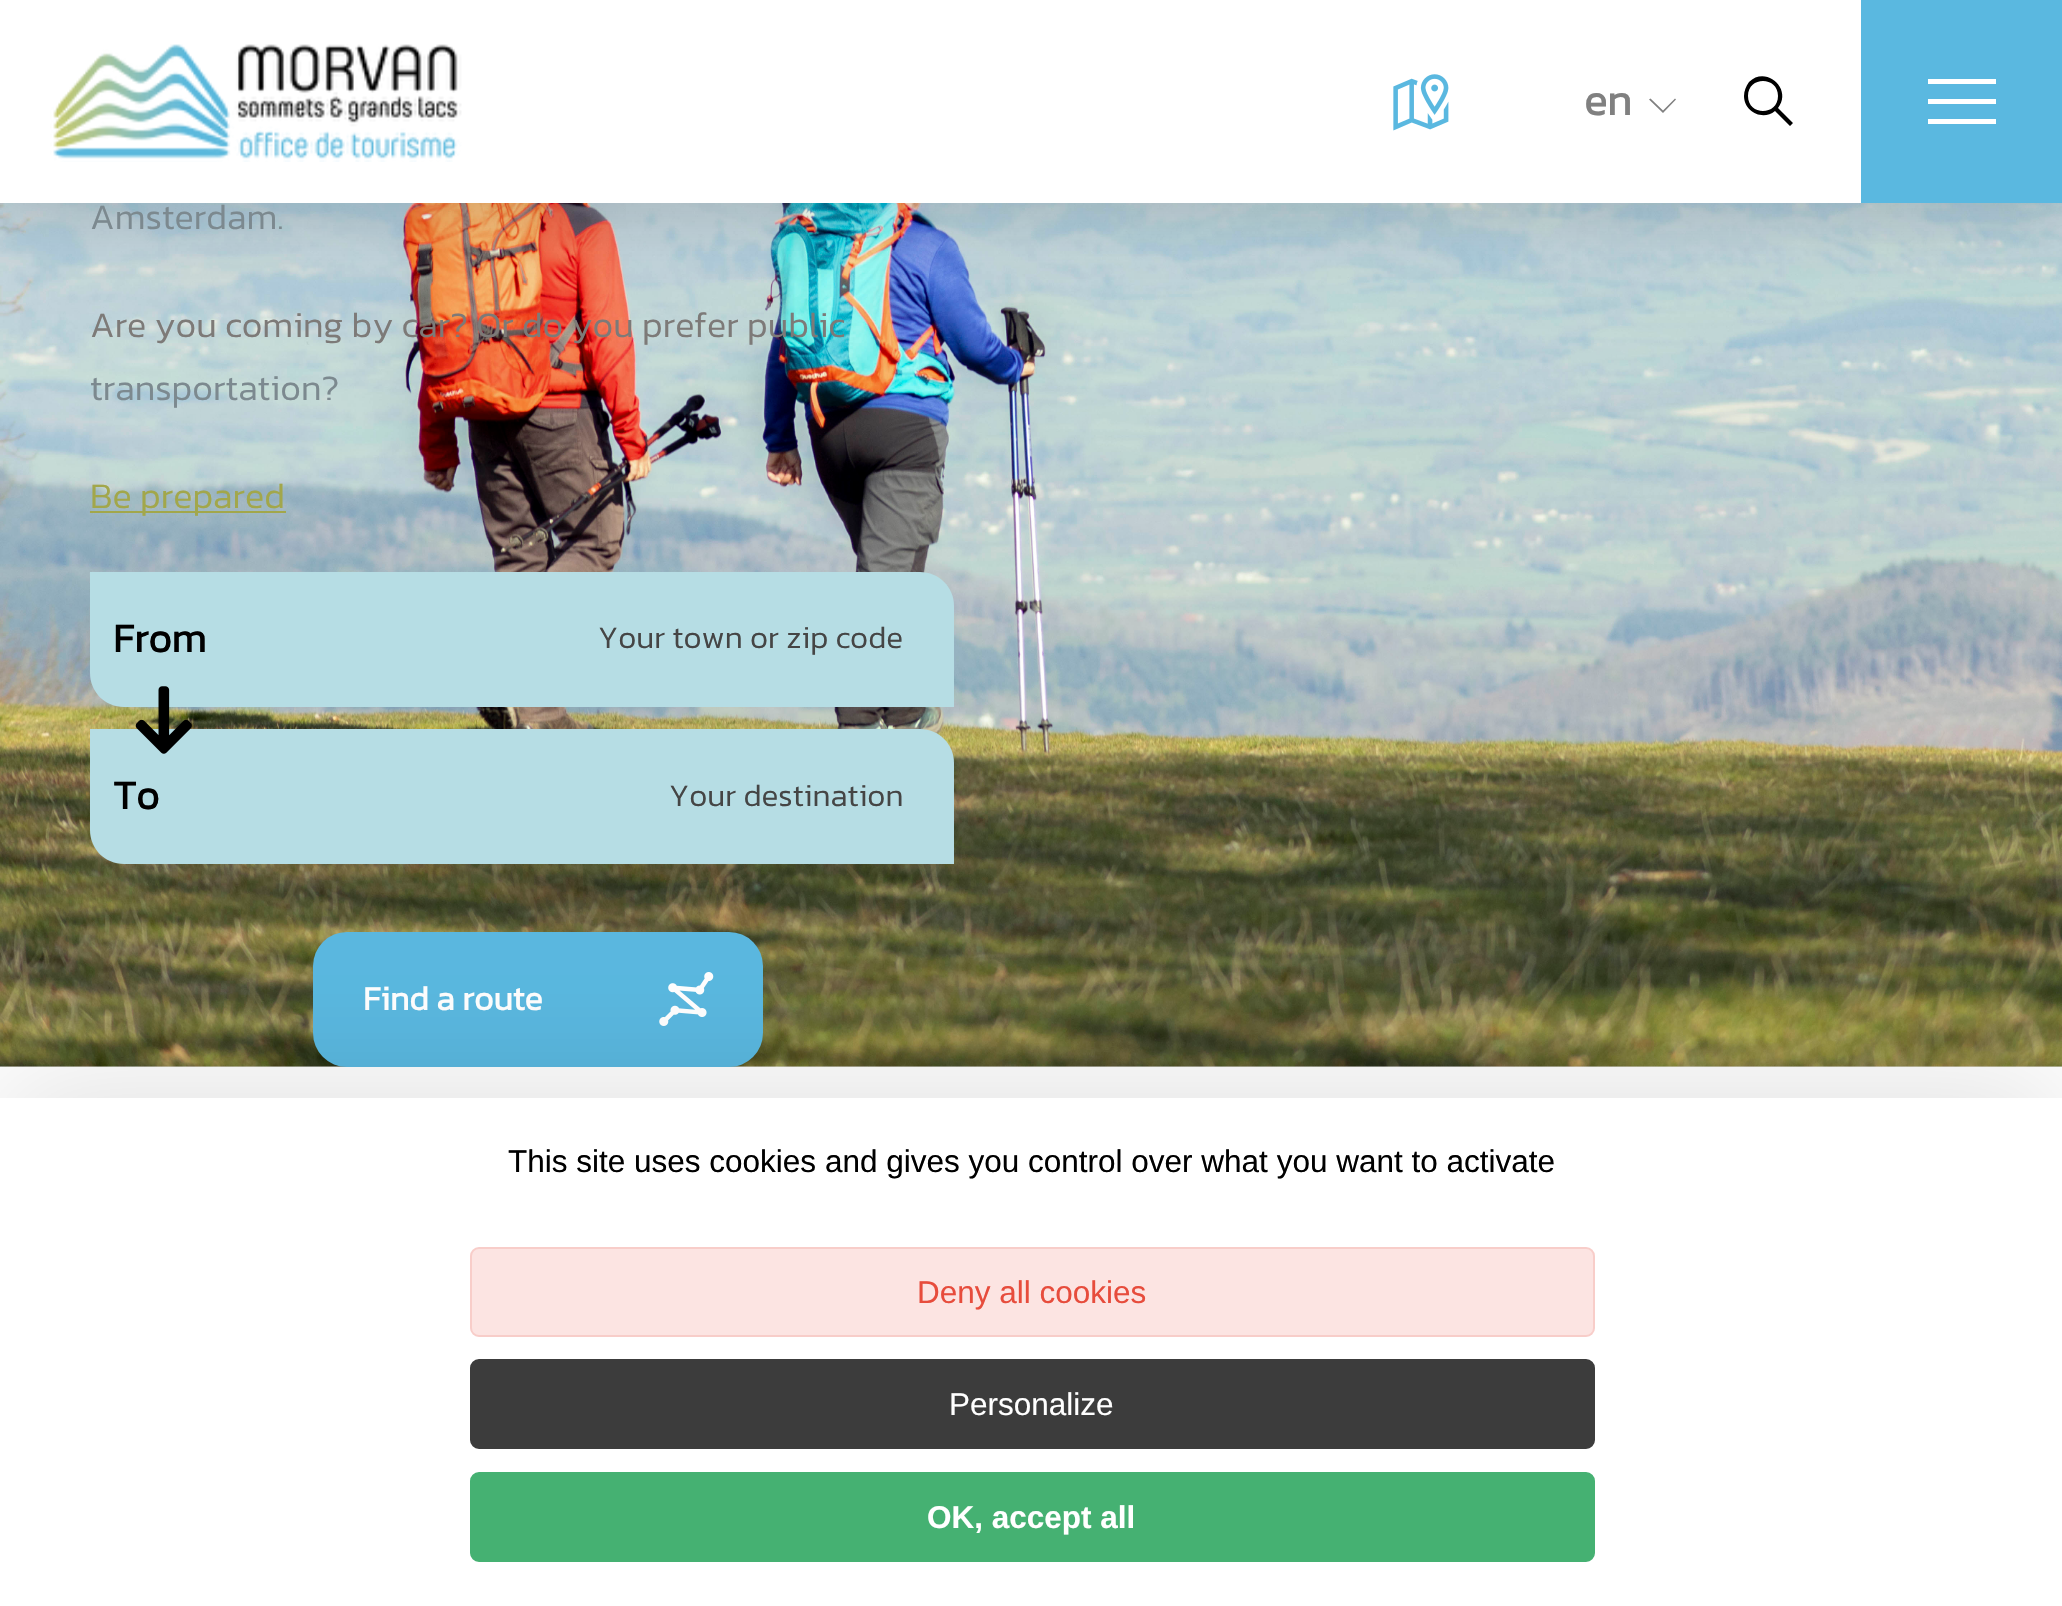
void draw(SkCanvas* c) {
SkPaint p;
p.setAntiAlias(true);
auto F=[&](const char* family, int weight, float size, bool italic = false){SkFontStyle style(weight, SkFontStyle::kNormal_Width,italic ? SkFontStyle::kItalic_Slant : SkFontStyle::kUpright_Slant);SkFont result(fontMgr->matchFamilyStyle(family, style), size);result.setSubpixel(true);return result;};
auto T=[&](const char* s, float x, float y, const SkFont& font){c->drawString(s, x, y, font, p);};
auto R=[&](float x, float y, float w, float h){c->drawRect(SkRect::MakeXYWH(x, y, w, h), p);};
auto Q=[&](float x, float y, float w, float h, float radius){c->drawRoundRect(SkRect::MakeXYWH(x, y, w, h), radius, radius, p);};
auto I=[&](const char* path, float x, float y, float w, float h){auto image = SkImages::DeferredFromEncodedData(SkData::MakeFromFileName(path));c->drawImageRect(image, SkRect::MakeXYWH(x, y, w, h), SkSamplingOptions());};
auto P=[&](const char* data, bool evenOdd = false){SkPath result = *SkParsePath::FromSVGString(data);if (evenOdd) result.setFillType(SkPathFillType::kEvenOdd);return result;};
c->clear(0xffffffff);
p.setColor(0xffe3e3e3);
R(0,1066,2062,1);
I("3.png",0,203,2062,864);
p.setColor(0x26000000);
p.setMaskFilter(SkMaskFilter::MakeBlur(kNormal_SkBlurStyle, 34));
c->drawRect(SkRect::MakeXYWH(-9,-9,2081,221),p);
p.setMaskFilter(nullptr);
p.setColor(0xffffffff);
R(0,0,1861,203);
I("1.png",50,44,412,118);
I("2.png",1393,74,56,57);
auto f1 = F("Kanit",700,43);
p.setColor(0xff808080);
T("en",1584,115,f1);
c->drawPath(P("M1650.5 98.5l-1.5 1l14 13.5l13-13.5l-1-1l-12 12z"),p);
p.setColor(0xff000000);
c->drawPath(P("M1744 96c0 16 19 25 31 15l15 15l3-3l-15-15c15-19-12-43-29-26c-3 4-5 9-5 14zm4 0c0-20 30-20 30 0c0 20-30 20-30 0z"),p);
p.setColor(0xff5ab8e0);
R(1861,0,201,203);
p.setColor(0xffffffff);
R(1928,79,68,5);
R(1928,99,68,5);
R(1928,119,68,5);
auto f2 = F("Kanit",300,36);
p.setColor(0xff7c898f);
T("Amsterdam.",90,229,f2);
p.setColor(0xff7d7a78);
T("Are you coming by car? Or do you prefer public",90,337,f2);
p.setColor(0xff7c898f);
T("transportation?",90,400,f2);
p.setColor(0xffa2a74b);
R(90,511,196,2);
T("Be prepared",90,508,f2);
p.setColor(0xffb6dde4);
c->drawPath(P("M90 572h830c19 0 34 15 34 34v101h-830c-19 0-34-15-34-34z"),p);
auto f3 = F("Kanit",700,40.5);
p.setColor(0xff000000);
T("From",113,652,f3);
auto f4 = F("Kanit",300,31.5);
p.setColor(0xff454545);
T("Your town or zip code",598,648,f4);
p.setColor(0xffb6dde4);
c->drawPath(P("M90 729h830c19 0 34 15 34 34v101h-830c-19 0-34-15-34-34z"),p);
I("4.png",135,686,57,68);
p.setColor(0xff000000);
T("To",113,809,f3);
p.setColor(0xff454545);
T("Your destination",669,806,f4);
p.setColor(0xff5ab8e0);
Q(313,932,450,135,34);
auto f5 = F("Kanit",700,33.75);
p.setColor(0xffffffff);
T("Find a route",363,1010,f5);
I("5.png",659,972,55,54);
p.setColor(0x1a000000);
p.setMaskFilter(SkMaskFilter::MakeBlur(kNormal_SkBlurStyle, 56));
c->drawRect(SkRect::MakeXYWH(0,1076,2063,508),p);
p.setMaskFilter(nullptr);
p.setColor(0xffffffff);
R(0,1098,2062,508);
auto f6 = F("Liberation Sans",400,31.5);
p.setColor(0xff000000);
T("This site uses cookies and gives you control over what you want to activate",508,1172,f6);
p.setColor(0xfffce4e2);
Q(470,1247,1125,90,9);
p.setStroke(true);
p.setStrokeWidth(2);
p.setColor(0x26e74c3c);
c->drawRoundRect(SkRect::MakeXYWH(471,1248,1123,88),8,8,p);
p.setStroke(false);
p.setColor(0xffe74c3c);
T("Deny all cookies",917,1303,f6);
p.setColor(0xff3c3c3c);
c->drawRoundRect(SkRect::MakeXYWH(471,1360,1123,88),8,8,p);
p.setStroke(true);
c->drawRoundRect(SkRect::MakeXYWH(471,1360,1123,88),8,8,p);
p.setStroke(false);
p.setColor(0xffffffff);
T("Personalize",949,1415,f6);
p.setColor(0xff45b172);
c->drawRoundRect(SkRect::MakeXYWH(471,1473,1123,88),8,8,p);
p.setStroke(true);
c->drawRoundRect(SkRect::MakeXYWH(471,1473,1123,88),8,8,p);
auto f7 = F("Liberation Sans",700,31.5);
p.setStroke(false);
p.setColor(0xffffffff);
T("OK, accept all",927,1528,f7);
}
